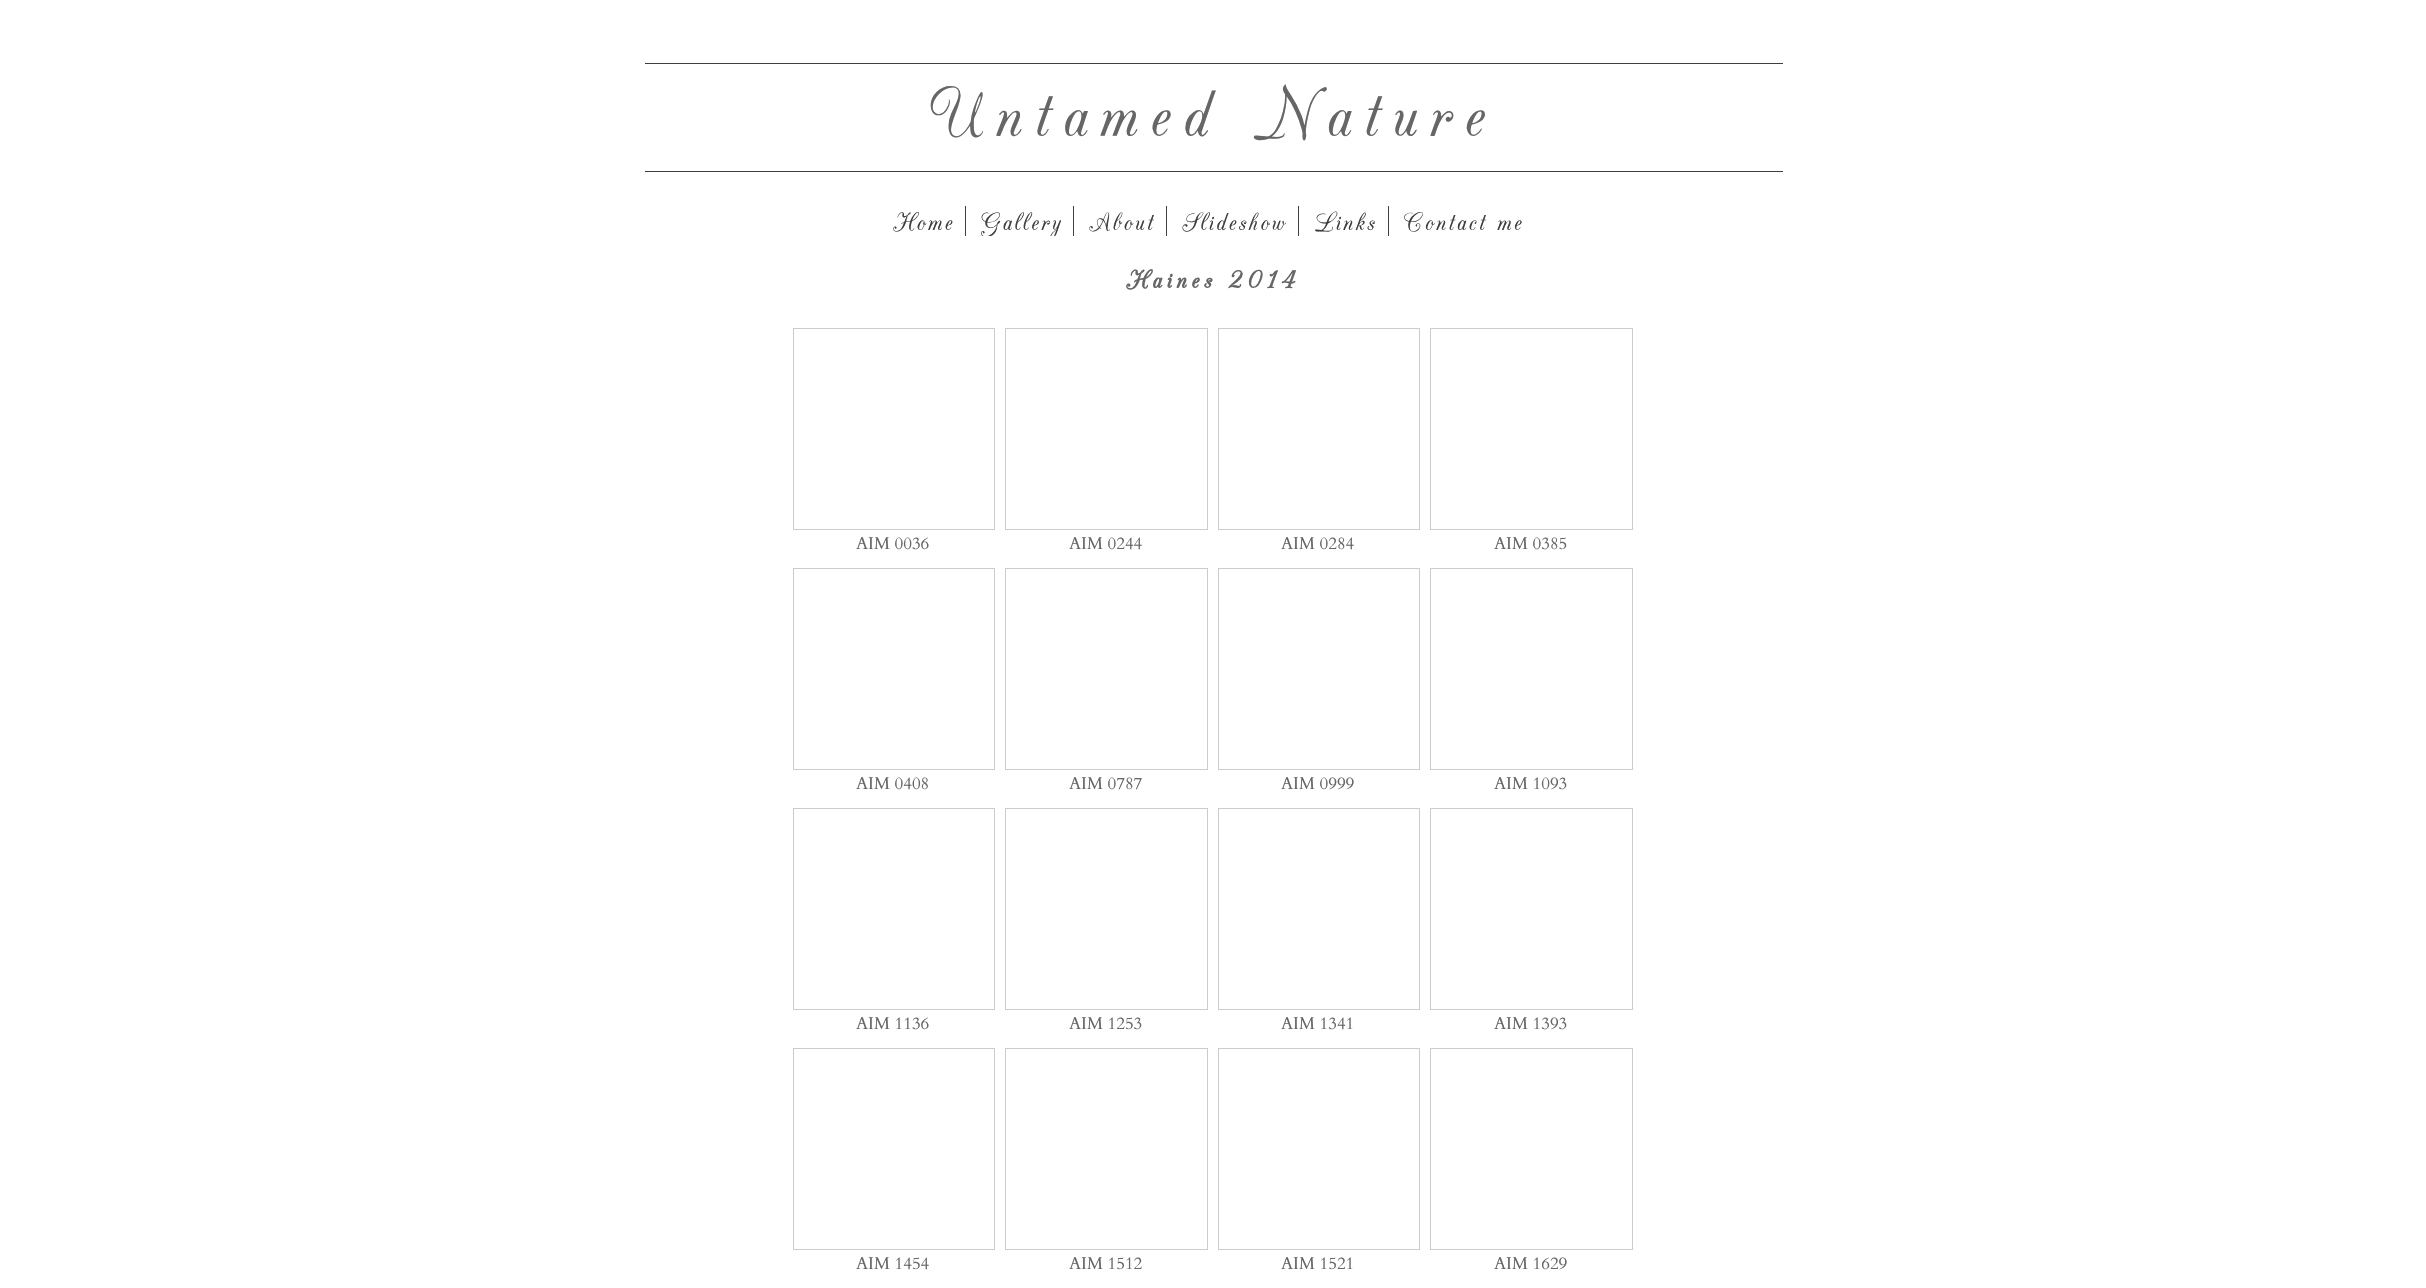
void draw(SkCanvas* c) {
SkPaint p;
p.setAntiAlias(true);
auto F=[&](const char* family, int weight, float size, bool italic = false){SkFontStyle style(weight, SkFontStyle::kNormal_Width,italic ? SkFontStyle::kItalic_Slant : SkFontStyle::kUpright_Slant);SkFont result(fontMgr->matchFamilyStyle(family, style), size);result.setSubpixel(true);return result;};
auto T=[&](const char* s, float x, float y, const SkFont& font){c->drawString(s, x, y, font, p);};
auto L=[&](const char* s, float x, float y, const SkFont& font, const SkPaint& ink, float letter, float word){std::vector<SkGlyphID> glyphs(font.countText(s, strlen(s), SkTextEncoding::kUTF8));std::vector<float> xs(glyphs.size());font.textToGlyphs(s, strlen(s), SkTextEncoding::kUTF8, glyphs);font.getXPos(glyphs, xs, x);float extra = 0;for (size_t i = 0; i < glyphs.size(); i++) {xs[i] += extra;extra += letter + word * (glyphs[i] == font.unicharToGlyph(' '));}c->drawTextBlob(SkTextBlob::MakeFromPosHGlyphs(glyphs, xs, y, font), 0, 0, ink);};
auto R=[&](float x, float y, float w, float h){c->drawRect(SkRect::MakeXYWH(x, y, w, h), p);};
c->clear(0xffffffff);
p.setColor(0xff3f3f3f);
R(645,63,1138,1);
R(645,171,1138,1);
auto f1 = F("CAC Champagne",400,80);
p.setColor(0xff666666);
L("Untamed Nature",930,136,f1,p,12.5,0);
auto f2 = F("CAC Champagne",400,30);
p.setColor(0xff3f3f3f);
L("Home",893,230,f2,p,2.5,0);
R(965,206,1,30);
c->save();
c->clipRect(SkRect::MakeXYWH(645,206,1138,30));
L("Gallery",981,230,f2,p,2.5,0);
c->restore();
R(1073,206,1,30);
L("About",1089,230,f2,p,2.5,0);
R(1166,206,1,30);
L("Slideshow",1182,230,f2,p,2.5,0);
R(1298,206,1,30);
L("Links",1314,230,f2,p,2.5,0);
R(1388,206,1,30);
L("Contact me",1404,230,f2,p,2.5,0);
auto f3 = F("CAC Champagne",700,30);
p.setColor(0xff666666);
L("Haines 2014",1126,288,f3,p,5,0);
p.setStroke(true);
p.setStrokeWidth(1);
p.setColor(0xffcccccc);
c->drawRect(SkRect::MakeXYWH(793.5,328.5,201,201),p);
auto f4 = F("Cardo",400,17);
p.setStroke(false);
p.setColor(0xff666666);
T("AIM 0036",856,549,f4);
p.setStroke(true);
p.setColor(0xffcccccc);
c->drawRect(SkRect::MakeXYWH(1005.5,328.5,202,201),p);
p.setStroke(false);
p.setColor(0xff666666);
T("AIM 0244",1069,549,f4);
p.setStroke(true);
p.setColor(0xffcccccc);
c->drawRect(SkRect::MakeXYWH(1218.5,328.5,201,201),p);
p.setStroke(false);
p.setColor(0xff666666);
T("AIM 0284",1281,549,f4);
p.setStroke(true);
p.setColor(0xffcccccc);
c->drawRect(SkRect::MakeXYWH(1430.5,328.5,202,201),p);
p.setStroke(false);
p.setColor(0xff666666);
T("AIM 0385",1494,549,f4);
p.setStroke(true);
p.setColor(0xffcccccc);
c->drawRect(SkRect::MakeXYWH(793.5,568.5,201,201),p);
p.setStroke(false);
p.setColor(0xff666666);
T("AIM 0408",856,789,f4);
p.setStroke(true);
p.setColor(0xffcccccc);
c->drawRect(SkRect::MakeXYWH(1005.5,568.5,202,201),p);
p.setStroke(false);
p.setColor(0xff666666);
T("AIM 0787",1069,789,f4);
p.setStroke(true);
p.setColor(0xffcccccc);
c->drawRect(SkRect::MakeXYWH(1218.5,568.5,201,201),p);
p.setStroke(false);
p.setColor(0xff666666);
T("AIM 0999",1281,789,f4);
p.setStroke(true);
p.setColor(0xffcccccc);
c->drawRect(SkRect::MakeXYWH(1430.5,568.5,202,201),p);
p.setStroke(false);
p.setColor(0xff666666);
T("AIM 1093",1494,789,f4);
p.setStroke(true);
p.setColor(0xffcccccc);
c->drawRect(SkRect::MakeXYWH(793.5,808.5,201,201),p);
p.setStroke(false);
p.setColor(0xff666666);
T("AIM 1136",856,1029,f4);
p.setStroke(true);
p.setColor(0xffcccccc);
c->drawRect(SkRect::MakeXYWH(1005.5,808.5,202,201),p);
p.setStroke(false);
p.setColor(0xff666666);
T("AIM 1253",1069,1029,f4);
p.setStroke(true);
p.setColor(0xffcccccc);
c->drawRect(SkRect::MakeXYWH(1218.5,808.5,201,201),p);
p.setStroke(false);
p.setColor(0xff666666);
T("AIM 1341",1281,1029,f4);
p.setStroke(true);
p.setColor(0xffcccccc);
c->drawRect(SkRect::MakeXYWH(1430.5,808.5,202,201),p);
p.setStroke(false);
p.setColor(0xff666666);
T("AIM 1393",1494,1029,f4);
p.setStroke(true);
p.setColor(0xffcccccc);
c->drawRect(SkRect::MakeXYWH(793.5,1048.5,201,201),p);
p.setStroke(false);
p.setColor(0xff666666);
T("AIM 1454",856,1269,f4);
p.setStroke(true);
p.setColor(0xffcccccc);
c->drawRect(SkRect::MakeXYWH(1005.5,1048.5,202,201),p);
p.setStroke(false);
p.setColor(0xff666666);
T("AIM 1512",1069,1269,f4);
p.setStroke(true);
p.setColor(0xffcccccc);
c->drawRect(SkRect::MakeXYWH(1218.5,1048.5,201,201),p);
p.setStroke(false);
p.setColor(0xff666666);
T("AIM 1521",1281,1269,f4);
p.setStroke(true);
p.setColor(0xffcccccc);
c->drawRect(SkRect::MakeXYWH(1430.5,1048.5,202,201),p);
p.setStroke(false);
p.setColor(0xff666666);
T("AIM 1629",1494,1269,f4);
}
